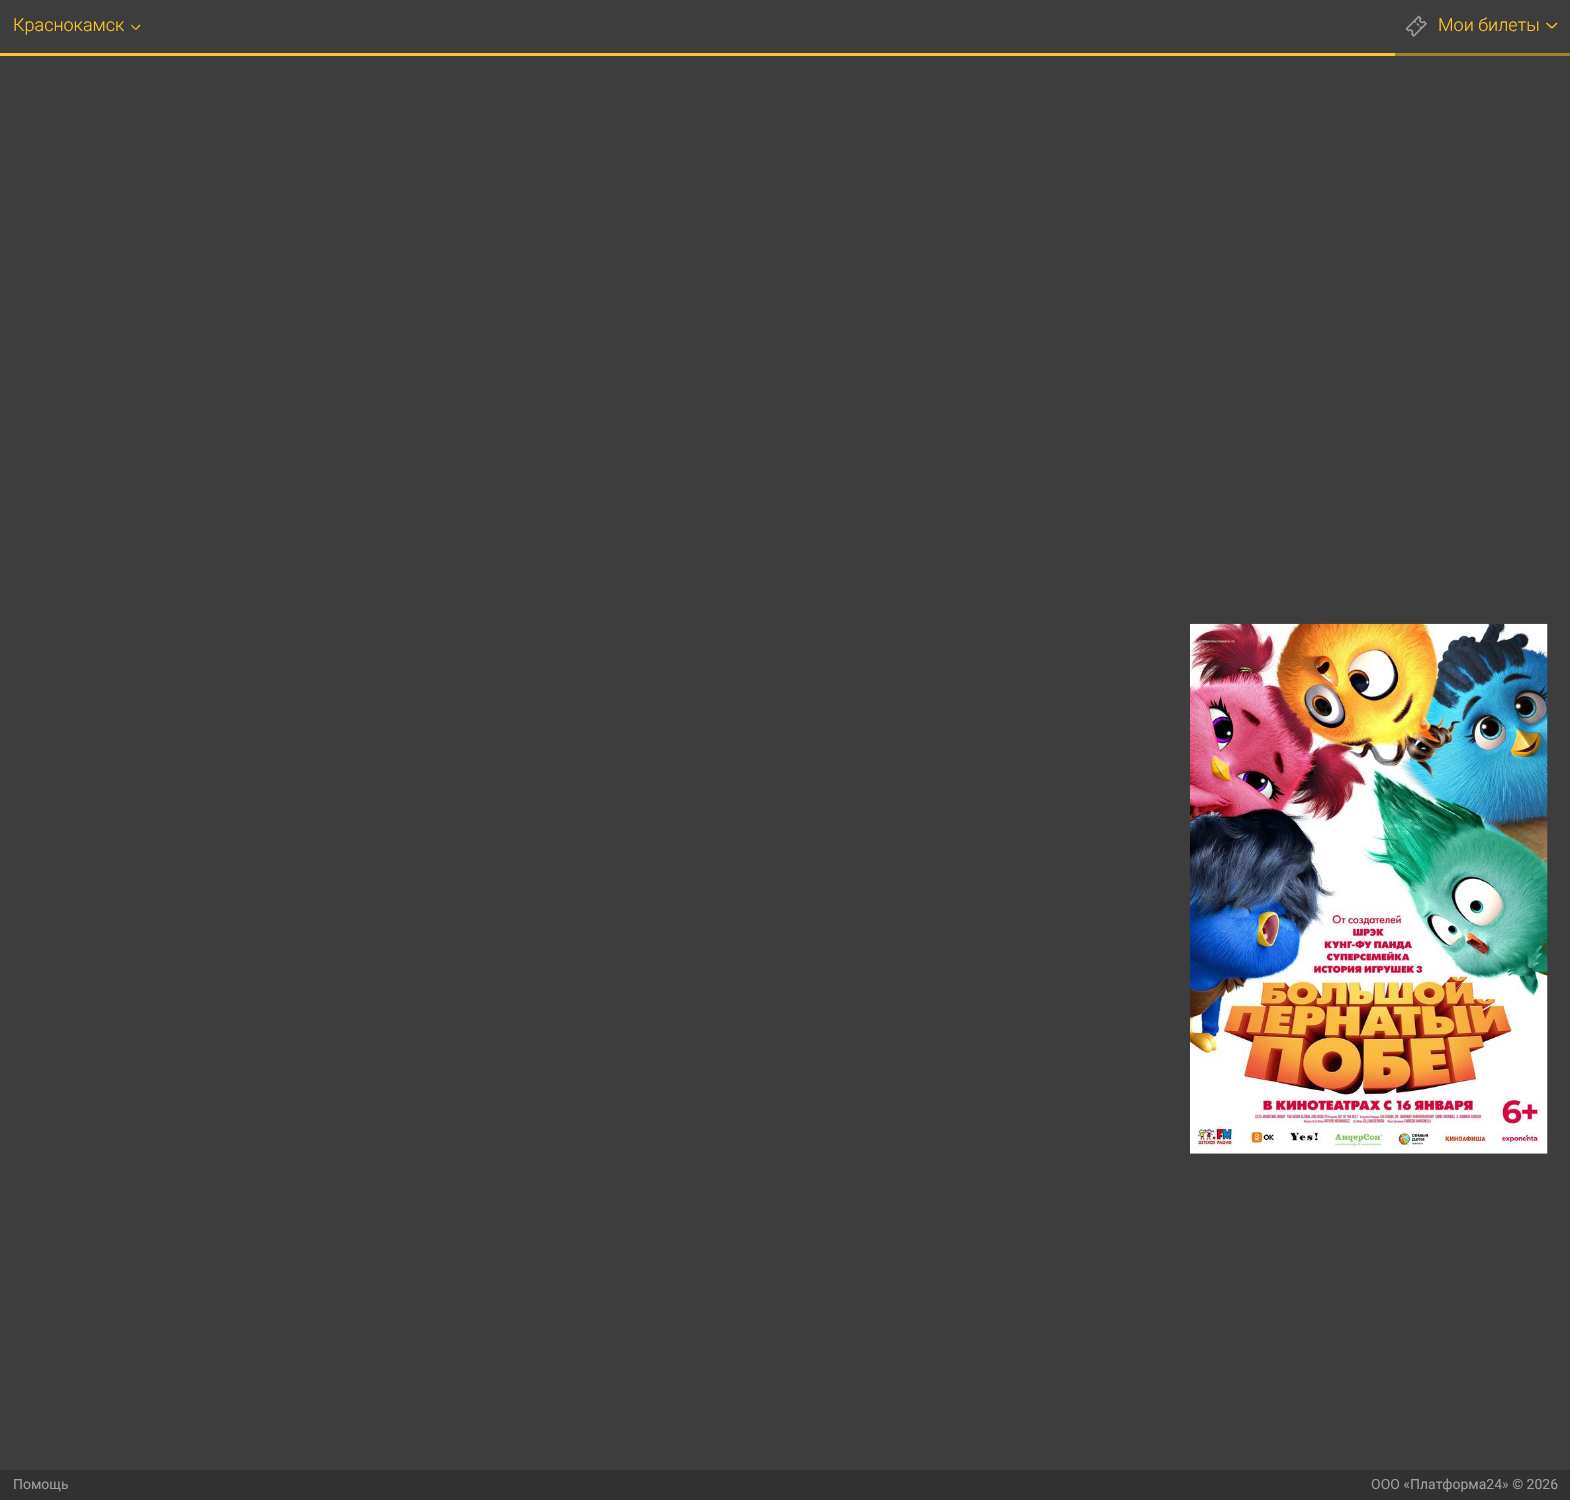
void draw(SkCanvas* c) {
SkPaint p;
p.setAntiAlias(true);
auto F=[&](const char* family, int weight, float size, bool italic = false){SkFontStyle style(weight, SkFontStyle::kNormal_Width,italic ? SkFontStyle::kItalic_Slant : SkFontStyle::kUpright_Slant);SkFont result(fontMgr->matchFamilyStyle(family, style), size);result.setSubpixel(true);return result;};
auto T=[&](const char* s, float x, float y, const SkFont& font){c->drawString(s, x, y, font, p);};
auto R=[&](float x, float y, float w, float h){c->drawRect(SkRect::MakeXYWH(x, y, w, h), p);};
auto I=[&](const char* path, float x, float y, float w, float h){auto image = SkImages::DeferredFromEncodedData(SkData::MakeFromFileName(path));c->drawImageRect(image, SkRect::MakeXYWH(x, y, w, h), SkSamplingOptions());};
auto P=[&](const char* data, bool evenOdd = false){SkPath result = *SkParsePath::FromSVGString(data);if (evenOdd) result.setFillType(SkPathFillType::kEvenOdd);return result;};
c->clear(0xff3d3d3d);
p.setColor(0xffffc725);
R(0,53,1395,3);
auto f1 = F("Roboto",300,18);
T("Краснокамск",13,31,f1);
c->drawPath(P("M131 25.5l.5-1l4.5 4.5l-.5 1z"),p);
c->drawPath(P("M139.5 24.5l1 1l-4.5 4.5l-.5-1z"),p);
p.setColor(0xff9e8231);
R(1395,53,175,3);
I("1.png",1405,15,22,22);
p.setColor(0xffffc725);
T("Мои билеты",1438,31,f1);
c->drawPath(P("M1546 23.5l1-1l5.5 5l-1 1z"),p);
c->drawPath(P("M1556.5 22.5l1 1l-5 5l-1-1z"),p);
I("2.png",1190,623,358,531);
p.setColor(0xff313131);
R(0,1470,1570,30);
auto f2 = F("Roboto",400,14);
p.setColor(0xff9e9e9e);
T("Помощь",13,1489,f2);
T("ООО «Платформа24» © 2026",1371,1489,f2);
}
